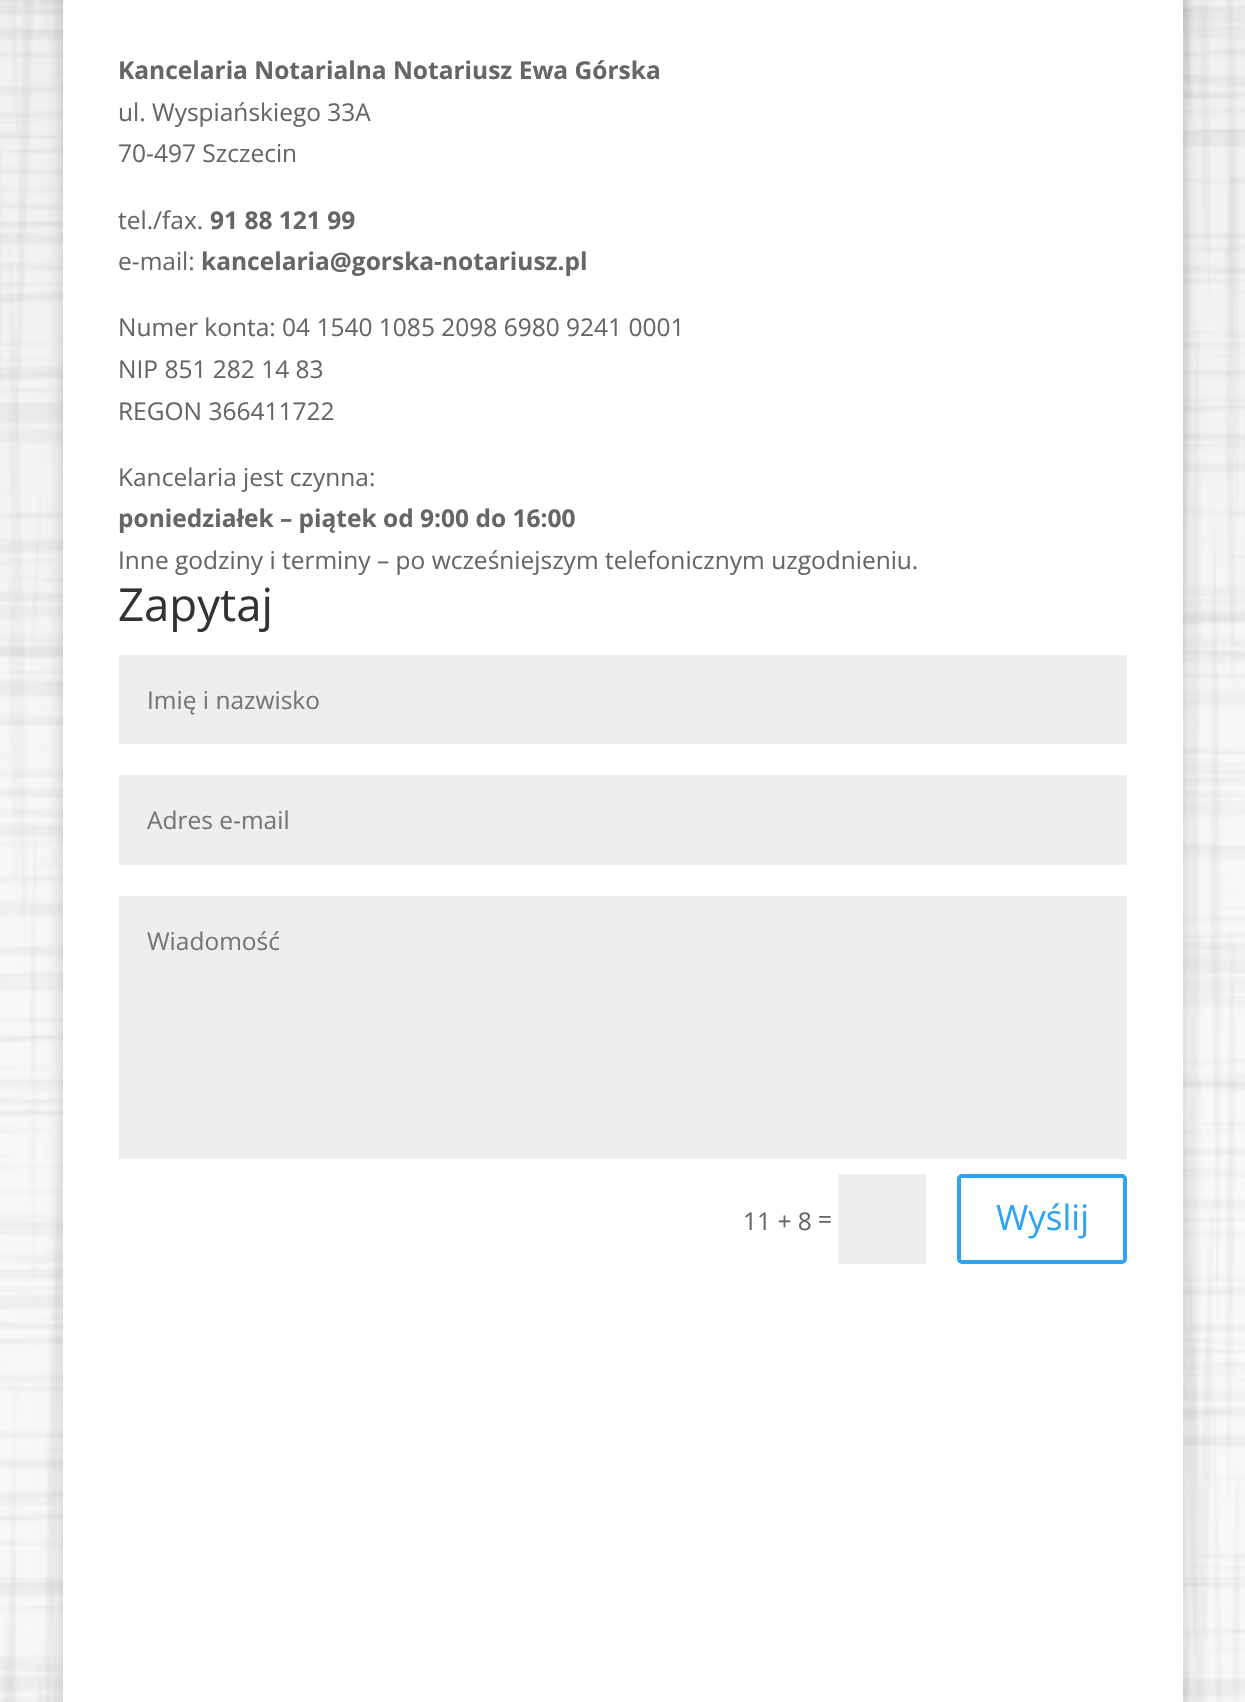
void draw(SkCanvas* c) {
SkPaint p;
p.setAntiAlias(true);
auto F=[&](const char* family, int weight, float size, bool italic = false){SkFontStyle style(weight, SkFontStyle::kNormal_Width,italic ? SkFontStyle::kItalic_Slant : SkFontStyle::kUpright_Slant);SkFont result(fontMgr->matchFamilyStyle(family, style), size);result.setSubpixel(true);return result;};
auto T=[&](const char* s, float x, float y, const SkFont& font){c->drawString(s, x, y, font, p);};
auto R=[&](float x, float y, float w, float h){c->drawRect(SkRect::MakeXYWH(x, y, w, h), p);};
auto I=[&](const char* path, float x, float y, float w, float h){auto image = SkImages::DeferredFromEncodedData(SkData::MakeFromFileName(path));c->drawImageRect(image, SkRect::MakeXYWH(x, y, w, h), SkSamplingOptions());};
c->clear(0xffffffff);
I("1.png",0,0,1245,1702);
p.setColor(0x33000000);
p.setMaskFilter(SkMaskFilter::MakeBlur(kNormal_SkBlurStyle, 9));
c->drawRect(SkRect::MakeXYWH(63,-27,1120,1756),p);
p.setMaskFilter(nullptr);
p.setColor(0xffffffff);
R(63,0,1120,1702);
auto f1 = F("Open Sans",700,24.5);
p.setColor(0xff666666);
T("Kancelaria Notarialna Notariusz Ewa Górska",118,79,f1);
auto f2 = F("Open Sans",400,24.5);
T("ul. Wyspiańskiego 33A",118,121,f2);
T("70-497 Szczecin",118,162,f2);
T("tel./fax.",118,229,f2);
T("91 88 121 99",210,229,f1);
T("e-mail:",118,270,f2);
T("kancelaria@gorska-notariusz.pl",201,270,f1);
T("Numer konta: 04 1540 1085 2098 6980 9241 0001",118,336,f2);
T("NIP 851 282 14 83",118,378,f2);
T("REGON 366411722",118,420,f2);
T("Kancelaria jest czynna:",118,486,f2);
T("poniedziałek – piątek od 9:00 do 16:00",118,527,f1);
T("Inne godziny i terminy – po wcześniejszym telefonicznym uzgodnieniu.",118,569,f2);
auto f3 = F("Open Sans",400,45.5);
p.setColor(0xff333333);
T("Zapytaj",118,621,f3);
p.setColor(0xffeeeeee);
R(119,655,1008,89);
p.setColor(0xff757575);
T("Imię i nazwisko",147,709,f2);
p.setColor(0xffeeeeee);
R(119,775,1008,90);
p.setColor(0xff757575);
T("Adres e-mail",147,829,f2);
p.setColor(0xffeeeeee);
R(119,896,1008,263);
p.setColor(0xff757575);
T("Wiadomość",147,950,f2);
p.setColor(0xff666666);
T("11 + 8",743,1230,f2);
T("=",818,1228,f2);
p.setColor(0xffeeeeee);
R(838,1174,88,90);
p.setStroke(true);
p.setStrokeWidth(4);
p.setColor(0xff2ea3f2);
c->drawRoundRect(SkRect::MakeXYWH(959,1176,166,86),3,3,p);
auto f4 = F("Open Sans",400,35);
p.setStroke(false);
T("Wyślij",996,1230,f4);
}
